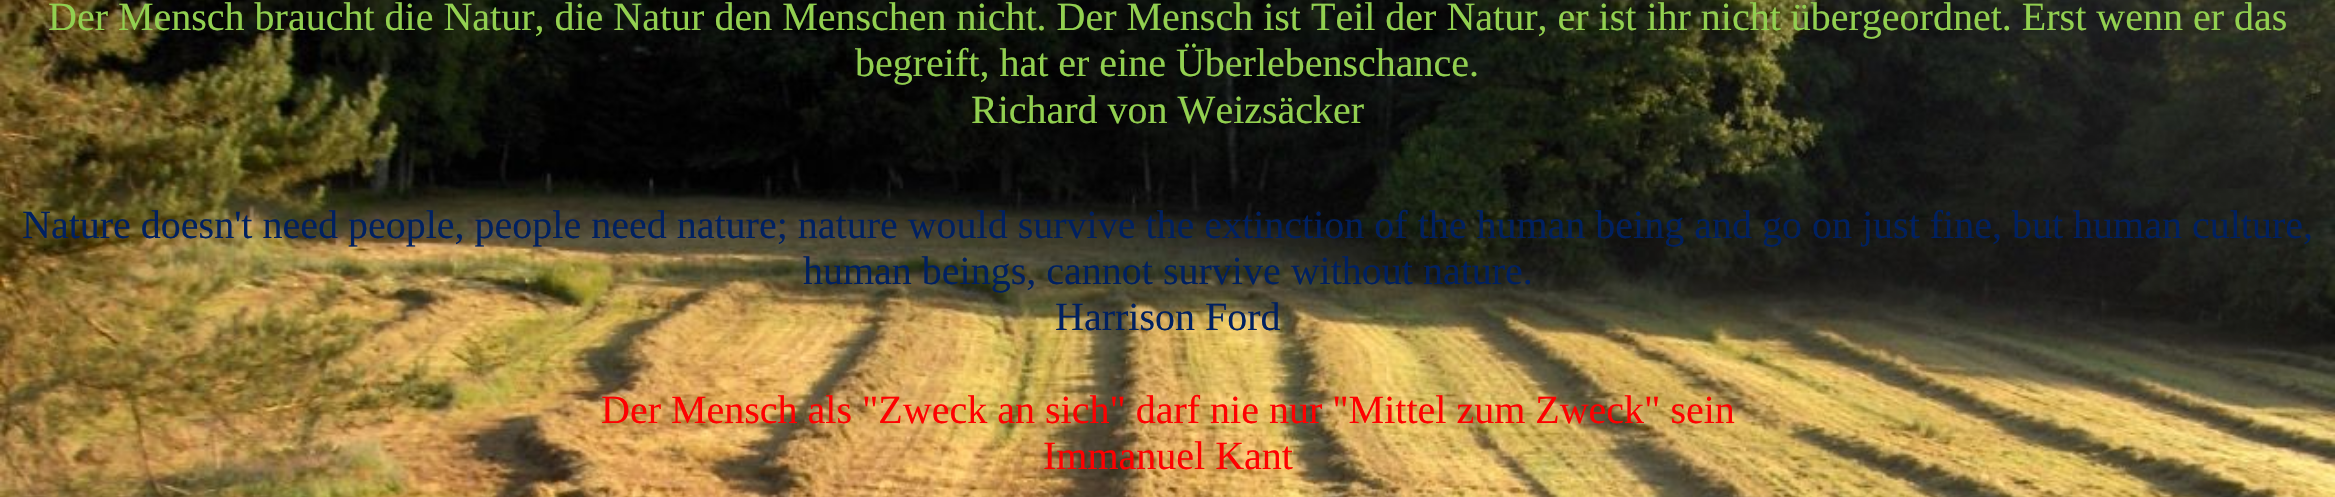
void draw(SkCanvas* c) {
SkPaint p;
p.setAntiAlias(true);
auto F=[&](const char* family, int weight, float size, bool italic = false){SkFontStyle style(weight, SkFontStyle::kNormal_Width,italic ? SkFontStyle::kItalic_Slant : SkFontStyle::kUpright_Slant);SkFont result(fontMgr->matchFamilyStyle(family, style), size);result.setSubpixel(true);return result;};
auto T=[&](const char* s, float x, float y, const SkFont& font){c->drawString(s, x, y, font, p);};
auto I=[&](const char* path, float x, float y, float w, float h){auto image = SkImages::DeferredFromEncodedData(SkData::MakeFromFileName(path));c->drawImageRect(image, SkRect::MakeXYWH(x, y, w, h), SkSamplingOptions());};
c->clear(0xffffffff);
I("1.png",0,0,2335,497);
auto f1 = F("Liberation Serif",400,40);
p.setColor(0xff92d050);
T("Der Mensch braucht die Natur, die Natur den Menschen nicht. Der Mensch ist Teil der Natur, er ist ihr nicht übergeordnet. Erst wenn er das",48,30,f1);
T("begreift, hat er eine Überlebenschance.",855,76,f1);
T("Richard von Weizsäcker",971,123,f1);
p.setColor(0xff002060);
T("Nature doesn't need people, people need nature; nature would survive the extinction of the human being and go on just fine, but human culture,",22,238,f1);
T("human beings, cannot survive without nature.",803,284,f1);
T("Harrison Ford",1055,330,f1);
p.setColor(0xffff0000);
T("Der Mensch als \"Zweck an sich\" darf nie nur \"Mittel zum Zweck\" sein",601,423,f1);
T("Immanuel Kant",1043,469,f1);
}
